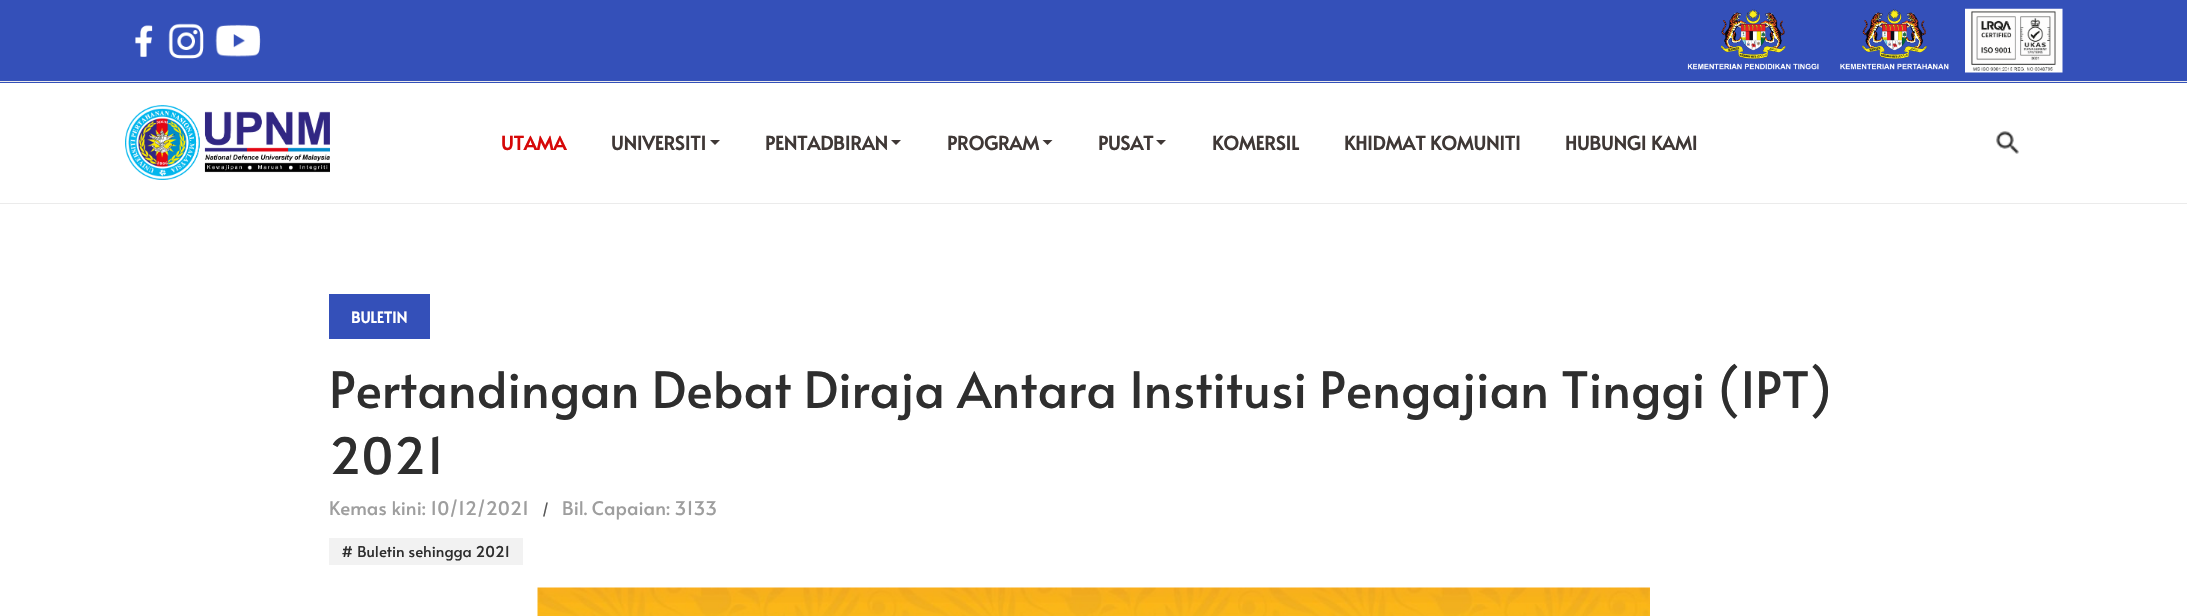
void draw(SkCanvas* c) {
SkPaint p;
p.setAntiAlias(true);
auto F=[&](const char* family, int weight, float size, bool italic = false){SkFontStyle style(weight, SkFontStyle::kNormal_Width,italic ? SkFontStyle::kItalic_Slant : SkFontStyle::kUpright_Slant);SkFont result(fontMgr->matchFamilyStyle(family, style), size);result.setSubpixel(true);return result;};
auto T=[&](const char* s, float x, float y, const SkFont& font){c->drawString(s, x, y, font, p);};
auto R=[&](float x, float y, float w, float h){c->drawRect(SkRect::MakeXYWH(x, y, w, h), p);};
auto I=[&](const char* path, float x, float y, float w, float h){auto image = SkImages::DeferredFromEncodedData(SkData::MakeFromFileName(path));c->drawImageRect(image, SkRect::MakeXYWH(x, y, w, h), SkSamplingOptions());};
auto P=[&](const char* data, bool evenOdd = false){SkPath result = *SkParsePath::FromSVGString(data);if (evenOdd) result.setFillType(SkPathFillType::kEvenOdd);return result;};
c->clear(0xffffffff);
p.setColor(0xffebebeb);
R(0,203,2187,1);
p.setColor(0xff3450b9);
R(0,0,2187,83);
p.setColor(0xffebebeb);
R(0,81,2187,1);
I("1.png",135,25,18,32);
I("2.png",168,23,36,36);
I("3.png",215,24,46,33);
I("4.png",1687,9,132,61);
I("5.png",1840,9,109,61);
I("6.png",1965,8,98,65);
I("7.png",125,105,205,75);
auto f1 = F("Alata",700,18.75);
p.setColor(0xffd60808);
T("UTAMA",501,150,f1);
p.setColor(0xff3f3836);
T("UNIVERSITI",611,150,f1);
c->drawPath(P("M710 140h10l-5 5z"),p);
T("PENTADBIRAN",765,150,f1);
c->drawPath(P("M891 140h10l-5 5z"),p);
T("PROGRAM",947,150,f1);
c->drawPath(P("M1042.5 140h10l-5 5z"),p);
T("PUSAT",1098,150,f1);
c->drawPath(P("M1156 140h10l-5 5z"),p);
T("KOMERSIL",1212,150,f1);
T("KHIDMAT KOMUNITI",1344,150,f1);
T("HUBUNGI KAMI",1565,150,f1);
I("8.png",1996,131,23,23);
p.setColor(0xff3450b9);
R(329,294,101,45);
auto f2 = F("Alata",700,15);
p.setColor(0xffffffff);
T("BULETIN",351,323,f2);
auto f3 = F("Alata",400,50);
p.setColor(0xff2e2e2e);
T("Pertandingan Debat Diraja Antara Institusi Pengajian Tinggi (IPT)",329,408,f3);
T("2021",329,474,f3);
auto f4 = F("Alata",400,18.75);
p.setColor(0xff9e9e9e);
T("Kemas kini: 10/12/2021",329,515,f4);
auto f5 = F("Alata",400,15);
p.setColor(0xff585858);
T("/",542,515,f5);
p.setColor(0xff9e9e9e);
T("Bil. Capaian: 3133",562,515,f4);
p.setColor(0xfff2f2f2);
R(329,538,194,27);
p.setColor(0xff2e2e2e);
T("# Buletin sehingga 2021",341,557,f5);
I("9.png",537,587,1113,29);
}
